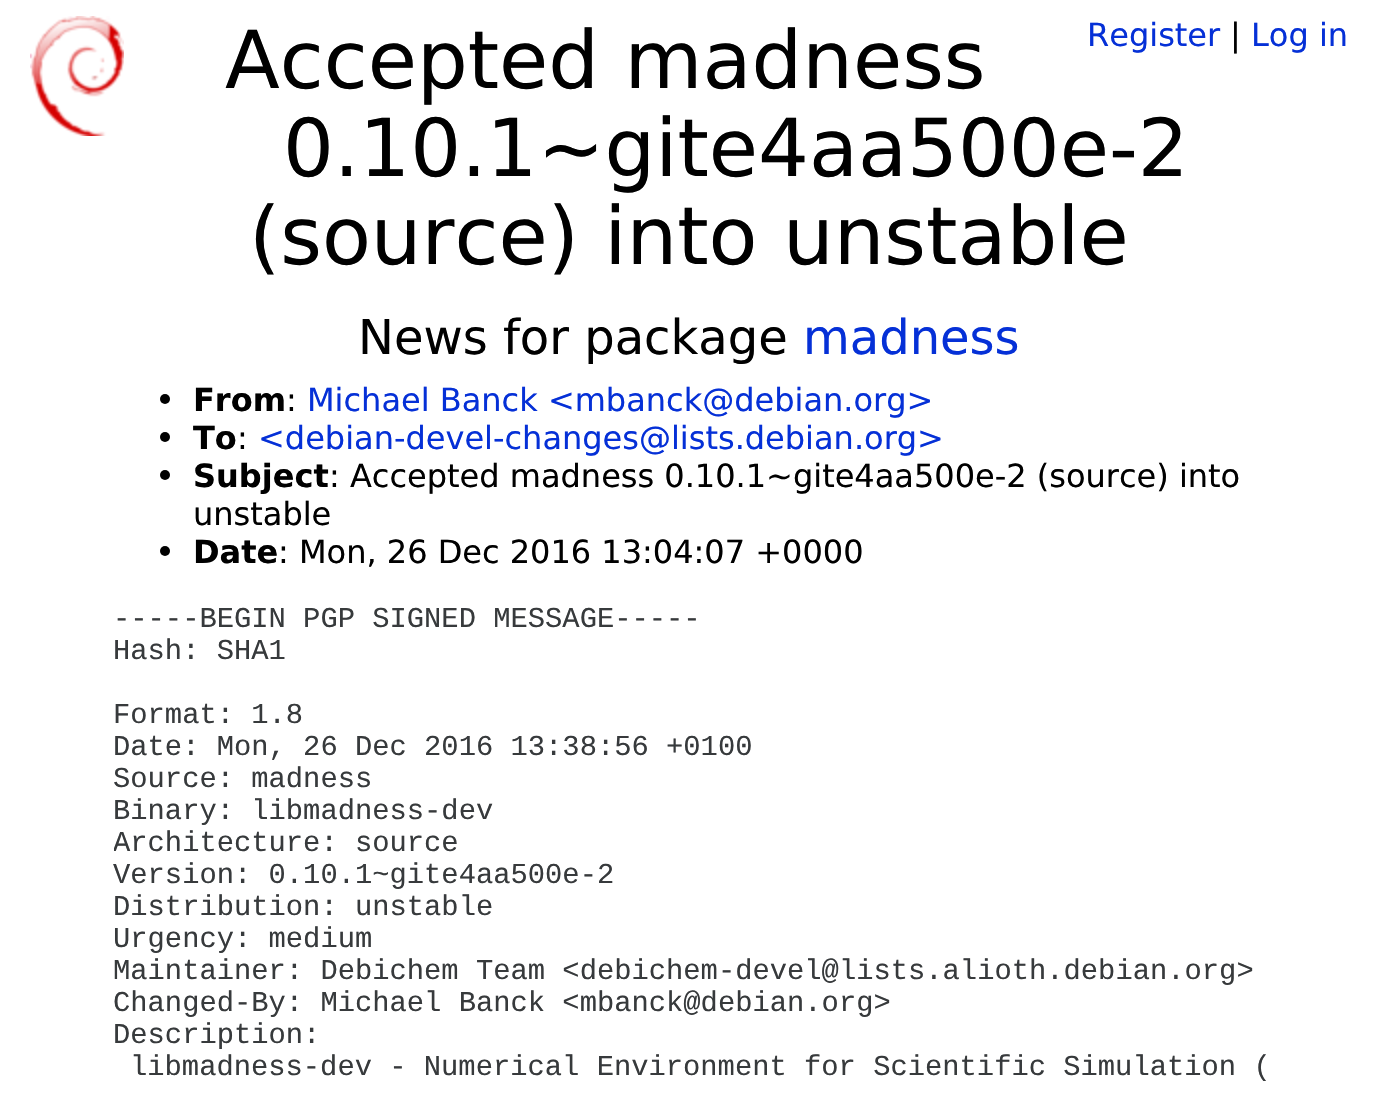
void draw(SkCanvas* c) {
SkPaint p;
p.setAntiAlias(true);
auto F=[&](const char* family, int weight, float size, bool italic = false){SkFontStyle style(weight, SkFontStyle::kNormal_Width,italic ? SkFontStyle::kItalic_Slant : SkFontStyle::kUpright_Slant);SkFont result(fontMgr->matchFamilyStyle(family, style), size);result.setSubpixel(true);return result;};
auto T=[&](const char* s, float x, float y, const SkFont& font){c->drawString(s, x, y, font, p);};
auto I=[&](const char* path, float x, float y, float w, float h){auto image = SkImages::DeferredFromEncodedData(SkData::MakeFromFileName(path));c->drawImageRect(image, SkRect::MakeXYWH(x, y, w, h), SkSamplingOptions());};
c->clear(0xffffffff);
I("1.png",30,16,94,120);
auto f1 = F("DejaVu Sans",400,80);
p.setColor(0xff000000);
T("Accepted madness",225,88,f1);
T("0.10.1~gite4aa500e-2",283,176,f1);
T("(source) into unstable",249,264,f1);
auto f2 = F("DejaVu Sans",400,32);
p.setColor(0xff0530d7);
T("Register",1087,46,f2);
p.setColor(0xff000000);
T("|",1230,46,f2);
p.setColor(0xff0530d7);
T("Log in",1251,46,f2);
auto f3 = F("DejaVu Sans",400,48);
p.setColor(0xff000000);
T("News for package",358,354,f3);
p.setColor(0xff0530d7);
T("madness",803,354,f3);
p.setColor(0xff000000);
c->drawCircle(165,399,5,p);
auto f4 = F("DejaVu Sans",700,32);
T("From",193,411,f4);
T(":",286,411,f2);
p.setColor(0xff0530d7);
T("Michael Banck <mbanck@debian.org>",307,411,f2);
p.setColor(0xff000000);
c->drawCircle(165,437,5,p);
T("To",193,449,f4);
T(":",237,449,f2);
p.setColor(0xff0530d7);
T("<debian-devel-changes@lists.debian.org>",258,449,f2);
p.setColor(0xff000000);
c->drawCircle(165,475,5,p);
T("Subject",193,487,f4);
T(": Accepted madness 0.10.1~gite4aa500e-2 (source) into",329,487,f2);
T("unstable",193,525,f2);
c->drawCircle(165,551,5,p);
T("Date",193,563,f4);
T(": Mon, 26 Dec 2016 13:04:07 +0000",278,563,f2);
auto f5 = F("Liberation Mono",400,28.8);
p.setColor(0xff373a3c);
T("-----BEGIN PGP SIGNED MESSAGE-----",113,627,f5);
T("Hash: SHA1",113,659,f5);
T("Format: 1.8",113,723,f5);
T("Date: Mon, 26 Dec 2016 13:38:56 +0100",113,755,f5);
T("Source: madness",113,787,f5);
T("Binary: libmadness-dev",113,819,f5);
c->save();
c->clipRect(SkRect::MakeXYWH(114,602,1152,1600));
T("Architecture: source",113,851,f5);
c->restore();
T("Version: 0.10.1~gite4aa500e-2",113,883,f5);
T("Distribution: unstable",113,915,f5);
T("Urgency: medium",113,947,f5);
T("Maintainer: Debichem Team <debichem-devel@lists.alioth.debian.org>",113,979,f5);
T("Changed-By: Michael Banck <mbanck@debian.org>",113,1011,f5);
T("Description:",113,1043,f5);
T("libmadness-dev - Numerical Environment for Scientific Simulation (",130,1075,f5);
}
